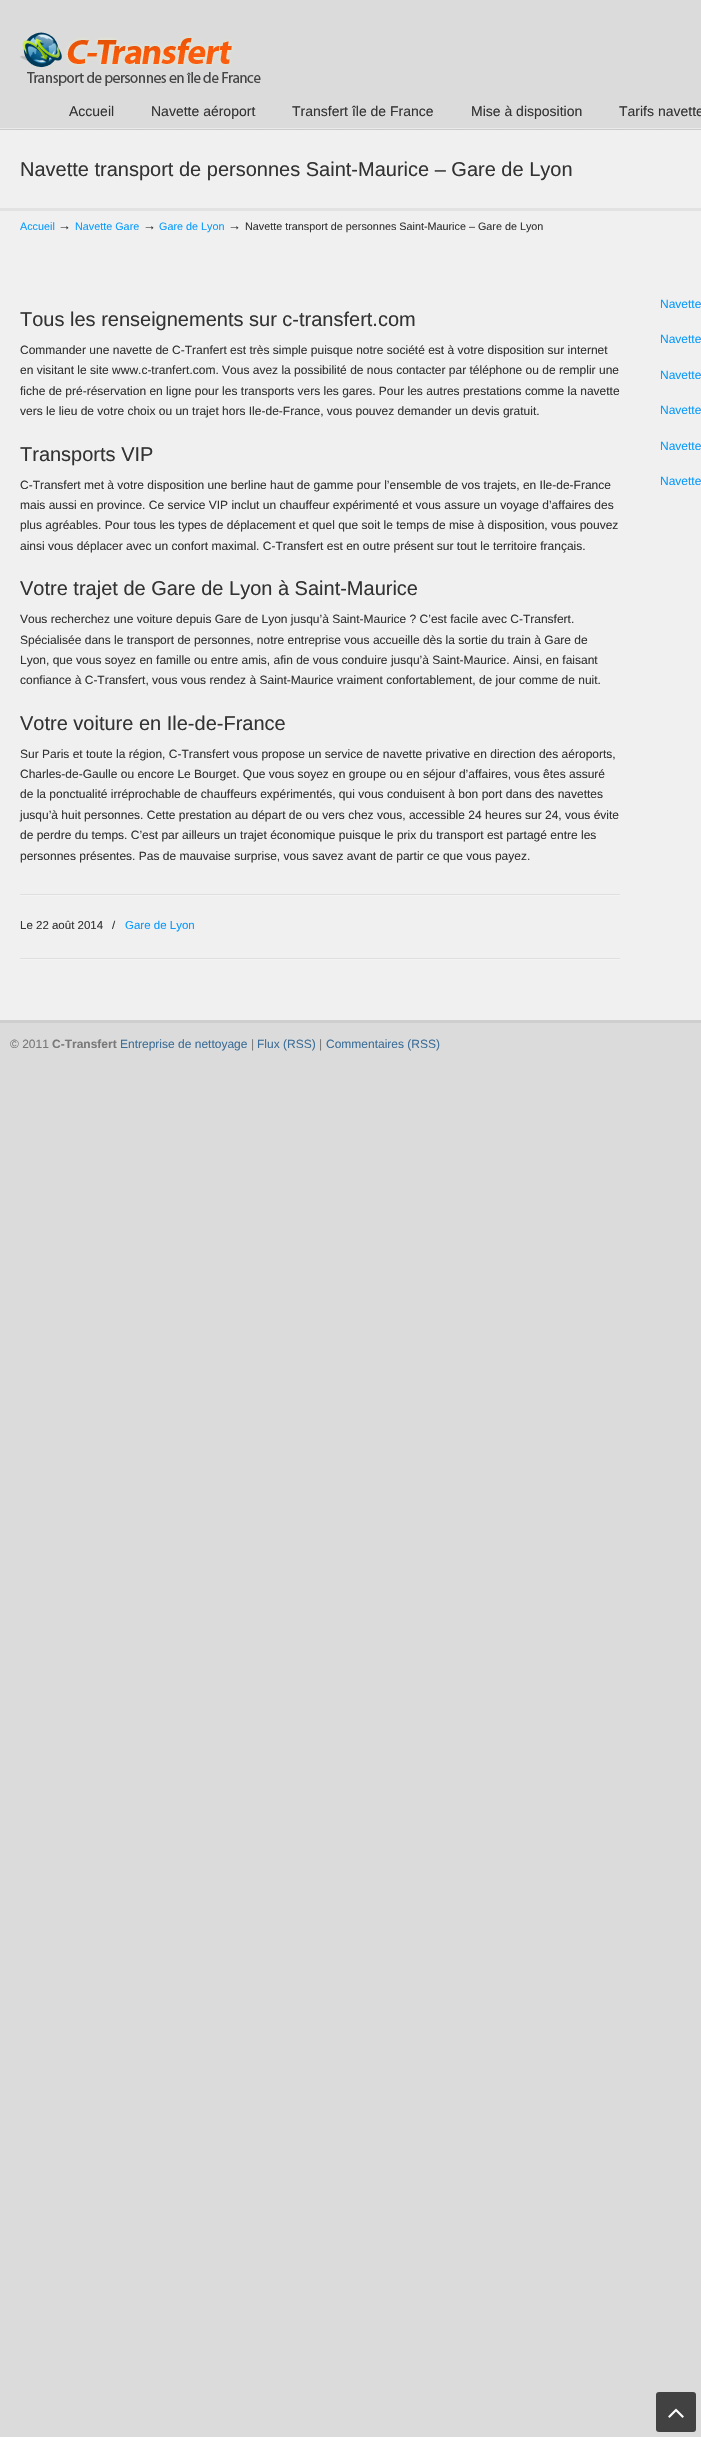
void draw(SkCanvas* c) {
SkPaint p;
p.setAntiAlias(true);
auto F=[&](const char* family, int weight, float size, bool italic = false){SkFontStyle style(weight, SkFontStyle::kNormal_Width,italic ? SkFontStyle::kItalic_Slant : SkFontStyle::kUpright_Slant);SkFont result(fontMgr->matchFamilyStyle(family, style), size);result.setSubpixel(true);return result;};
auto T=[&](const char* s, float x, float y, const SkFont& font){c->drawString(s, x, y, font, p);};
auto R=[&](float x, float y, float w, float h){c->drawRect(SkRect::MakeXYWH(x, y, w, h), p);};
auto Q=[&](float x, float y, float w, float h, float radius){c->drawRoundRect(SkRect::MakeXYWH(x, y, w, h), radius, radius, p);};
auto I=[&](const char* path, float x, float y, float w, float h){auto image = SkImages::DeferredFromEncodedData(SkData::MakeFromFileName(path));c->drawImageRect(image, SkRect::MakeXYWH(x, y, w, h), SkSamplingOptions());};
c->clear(0xffdbdbdb);
I("1.png",20,32,241,54);
auto f1 = F("Liberation Sans",400,14);
p.setColor(0xff333333);
T("Accueil",69,116,f1);
T("Navette aéroport",151,116,f1);
T("Transfert île de France",292,116,f1);
T("Mise à disposition",471,116,f1);
T("Tarifs navette",619,116,f1);
I("2.png",0,128,701,2);
p.setColor(0xfff0f0f0);
R(0,130,701,78);
auto f2 = F("Liberation Sans",400,20);
p.setColor(0xff333333);
T("Navette transport de personnes Saint-Maurice – Gare de Lyon",20,176,f2);
p.setColor(0xfff0f0f0);
R(0,211,701,809);
p.setColor(0xffe2e2e2);
R(0,208,701,3);
auto f3 = F("Liberation Sans",400,10.8);
p.setColor(0xff0a9bfc);
T("Accueil",20,230,f3);
auto f4 = F("Liberation Sans",400,13);
p.setColor(0xff333333);
T("→",58,230,f4);
p.setColor(0xff0a9bfc);
T("Navette Gare",75,230,f3);
p.setColor(0xff333333);
T("→",143,230,f4);
p.setColor(0xff0a9bfc);
T("Gare de Lyon",159,230,f3);
p.setColor(0xff333333);
T("→",228,230,f4);
T("Navette transport de personnes Saint-Maurice – Gare de Lyon",245,230,f3);
T("Tous les renseignements sur c-transfert.com",20,326,f2);
auto f5 = F("Liberation Sans",400,12);
T("Commander une navette de C-Tranfert est très simple puisque notre société est à votre disposition sur internet",20,354,f5);
T("en visitant le site www.c-tranfert.com. Vous avez la possibilité de nous contacter par téléphone ou de remplir une",20,374,f5);
T("fiche de pré-réservation en ligne pour les transports vers les gares. Pour les autres prestations comme la navette",20,395,f5);
T("vers le lieu de votre choix ou un trajet hors Ile-de-France, vous pouvez demander un devis gratuit.",20,415,f5);
T("Transports VIP",20,461,f2);
T("C-Transfert met à votre disposition une berline haut de gamme pour l’ensemble de vos trajets, en Ile-de-France",20,489,f5);
T("mais aussi en province. Ce service VIP inclut un chauffeur expérimenté et vous assure un voyage d’affaires des",20,509,f5);
T("plus agréables. Pour tous les types de déplacement et quel que soit le temps de mise à disposition, vous pouvez",20,529,f5);
T("ainsi vous déplacer avec un confort maximal. C-Transfert est en outre présent sur tout le territoire français.",20,550,f5);
T("Votre trajet de Gare de Lyon à Saint-Maurice",20,595,f2);
T("Vous recherchez une voiture depuis Gare de Lyon jusqu’à Saint-Maurice ? C’est facile avec C-Transfert.",20,623,f5);
T("Spécialisée dans le transport de personnes, notre entreprise vous accueille dès la sortie du train à Gare de",20,644,f5);
T("Lyon, que vous soyez en famille ou entre amis, afin de vous conduire jusqu’à Saint-Maurice. Ainsi, en faisant",20,664,f5);
T("confiance à C-Transfert, vous vous rendez à Saint-Maurice vraiment confortablement, de jour comme de nuit.",20,684,f5);
T("Votre voiture en Ile-de-France",20,730,f2);
T("Sur Paris et toute la région, C-Transfert vous propose un service de navette privative en direction des aéroports,",20,758,f5);
T("Charles-de-Gaulle ou encore Le Bourget. Que vous soyez en groupe ou en séjour d’affaires, vous êtes assuré",20,778,f5);
T("de la ponctualité irréprochable de chauffeurs expérimentés, qui vous conduisent à bon port dans des navettes",20,798,f5);
T("jusqu’à huit personnes. Cette prestation au départ de ou vers chez vous, accessible 24 heures sur 24, vous évite",20,819,f5);
T("de perdre du temps. C’est par ailleurs un trajet économique puisque le prix du transport est partagé entre les",20,839,f5);
T("personnes présentes. Pas de mauvaise surprise, vous savez avant de partir ce que vous payez.",20,860,f5);
I("3.png",20,894,600,2);
auto f6 = F("Liberation Sans",400,11.5);
T("Le 22 août 2014",20,929,f6);
T("/",112,929,f6);
p.setColor(0xff0a9bfc);
T("Gare de Lyon",125,929,f6);
I("3.png",20,958,600,2);
T("Navette",660,308,f5);
T("Navette",660,343,f5);
T("Navette",660,379,f5);
T("Navette",660,414,f5);
T("Navette",660,450,f5);
T("Navette",660,485,f5);
p.setColor(0xffcecece);
R(0,1020,701,3);
p.setColor(0xff797979);
T("© 2011",10,1048,f5);
auto f7 = F("Liberation Sans",700,12);
T("C-Transfert",52,1048,f7);
p.setColor(0xff3d6e97);
T("Entreprise de nettoyage",120,1048,f5);
p.setColor(0xff797979);
T("|",251,1048,f5);
p.setColor(0xff3d6e97);
T("Flux (RSS)",257,1048,f5);
p.setColor(0xff797979);
T("|",319,1048,f5);
p.setColor(0xff3d6e97);
T("Commentaires (RSS)",326,1048,f5);
p.setColor(0xff424242);
Q(656,2392,40,40,3);
I("4.png",668,2408,16,10);
}
